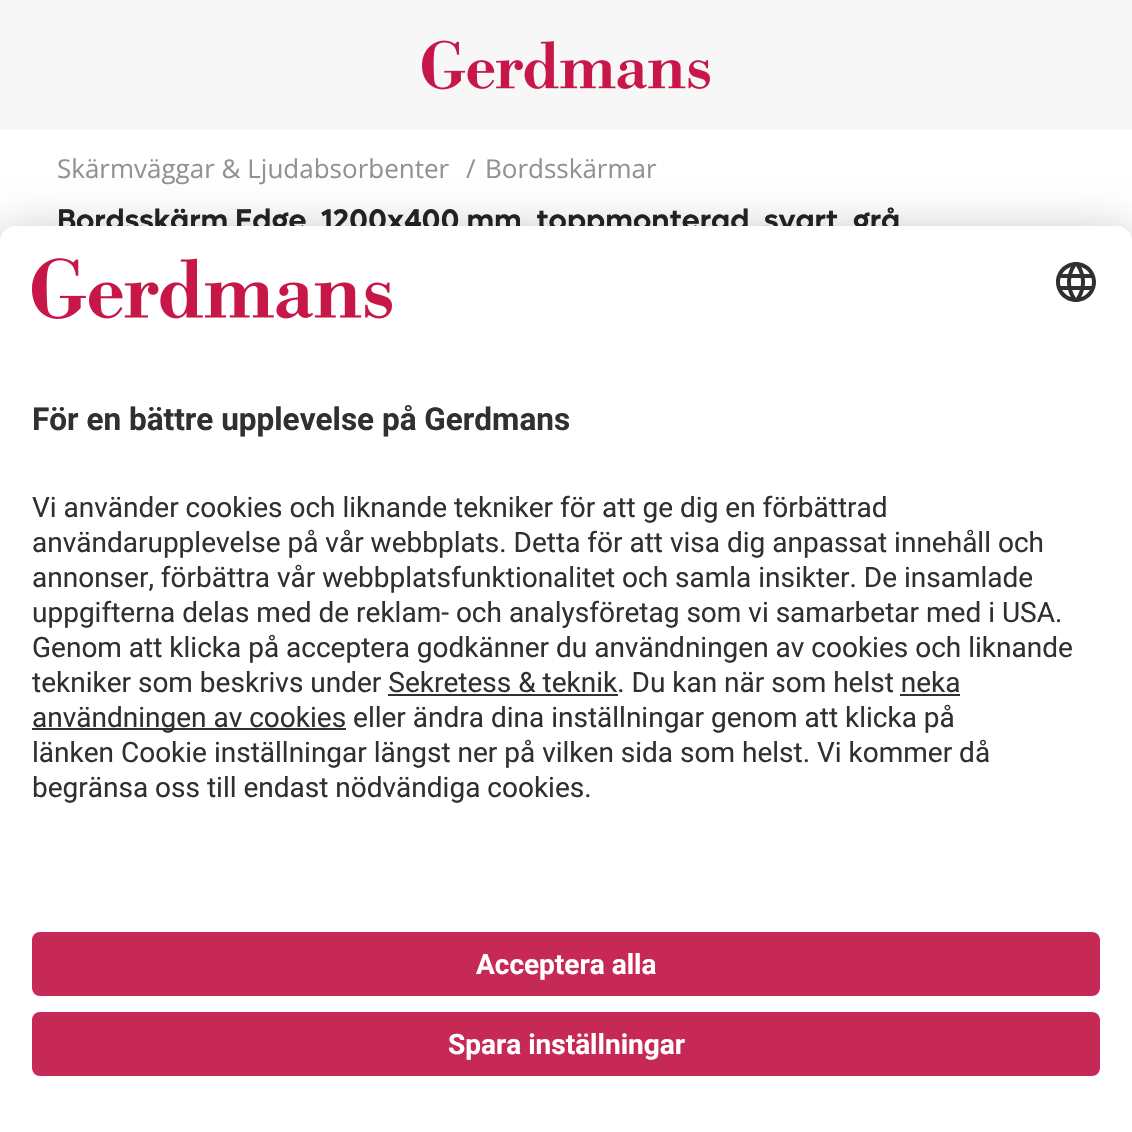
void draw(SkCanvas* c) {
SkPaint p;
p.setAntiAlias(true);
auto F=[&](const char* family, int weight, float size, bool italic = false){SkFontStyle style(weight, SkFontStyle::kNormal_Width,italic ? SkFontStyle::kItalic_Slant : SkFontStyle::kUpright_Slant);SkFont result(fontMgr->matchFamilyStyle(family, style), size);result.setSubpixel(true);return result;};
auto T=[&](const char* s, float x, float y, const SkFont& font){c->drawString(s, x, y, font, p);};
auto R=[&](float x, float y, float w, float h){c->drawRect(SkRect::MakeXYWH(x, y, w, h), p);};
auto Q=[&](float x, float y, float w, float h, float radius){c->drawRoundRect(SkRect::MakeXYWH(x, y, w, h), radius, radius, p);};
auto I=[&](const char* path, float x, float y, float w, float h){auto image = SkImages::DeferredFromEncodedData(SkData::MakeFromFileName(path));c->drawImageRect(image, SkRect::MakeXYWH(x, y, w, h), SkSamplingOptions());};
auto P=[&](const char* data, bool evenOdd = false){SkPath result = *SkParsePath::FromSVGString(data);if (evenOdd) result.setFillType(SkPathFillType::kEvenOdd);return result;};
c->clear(0xffffffff);
p.setColor(0xfff7f7f7);
R(0,0,1132,130);
I("1.png",422,40,288,50);
auto f1 = F("Open Sans",400,26);
p.setColor(0xff929292);
T("Skärmväggar & Ljudabsorbenter",57,178,f1);
T("/",466,178,f1);
T("Bordsskärmar",485,178,f1);
auto f2 = F("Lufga",600,30);
p.setColor(0xff242424);
T("Bordsskärm Edge, 1200x400 mm, toppmonterad, svart, grå",57,230,f2);
p.setColor(0x4d000000);
p.setMaskFilter(SkMaskFilter::MakeBlur(kNormal_SkBlurStyle, 28));
c->drawRoundRect(SkRect::MakeXYWH(0,266,1132,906),16,16,p);
p.setMaskFilter(nullptr);
p.setColor(0x38000000);
p.setMaskFilter(SkMaskFilter::MakeBlur(kNormal_SkBlurStyle, 26));
c->drawRoundRect(SkRect::MakeXYWH(0,236,1132,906),16,16,p);
p.setMaskFilter(nullptr);
p.setColor(0xffffffff);
c->drawPath(P("M16 226h1100c9 0 16 7 16 16v890h-1132v-890c0-9 7-16 16-16z"),p);
c->drawPath(P("M16 226h1100c9 0 16 7 16 16v666h-1132v-666c0-9 7-16 16-16z"),p);
I("2.png",32,258,360,61);
I("3.png",1056,262,40,40);
auto f3 = F("Roboto",700,31.5);
p.setColor(0xff303030);
T("För en bättre upplevelse på Gerdmans",32,430,f3);
auto f4 = F("Roboto",400,28);
T("Vi använder cookies och liknande tekniker för att ge dig en förbättrad",32,517,f4);
T("användarupplevelse på vår webbplats. Detta för att visa dig anpassat innehåll och",32,552,f4);
T("annonser, förbättra vår webbplatsfunktionalitet och samla insikter. De insamlade",32,587,f4);
T("uppgifterna delas med de reklam- och analysföretag som vi samarbetar med i USA.",32,622,f4);
T("Genom att klicka på acceptera godkänner du användningen av cookies och liknande",32,657,f4);
T("tekniker som beskrivs under Sekretess & teknik. Du kan när som helst neka",32,692,f4);
R(388,694,230,2);
R(900,694,60,2);
R(32,728,314,2);
T("användningen av cookies eller ändra dina inställningar genom att klicka på",32,727,f4);
T("länken Cookie inställningar längst ner på vilken sida som helst. Vi kommer då",32,762,f4);
T("begränsa oss till endast nödvändiga cookies.",32,797,f4);
p.setColor(0xffc72956);
Q(32,932,1068,64,8);
auto f5 = F("Roboto",700,28);
p.setColor(0xffffffff);
T("Acceptera alla",476,974,f5);
p.setColor(0xffc72956);
Q(32,1012,1068,64,8);
p.setColor(0xffffffff);
T("Spara inställningar",448,1054,f5);
}
